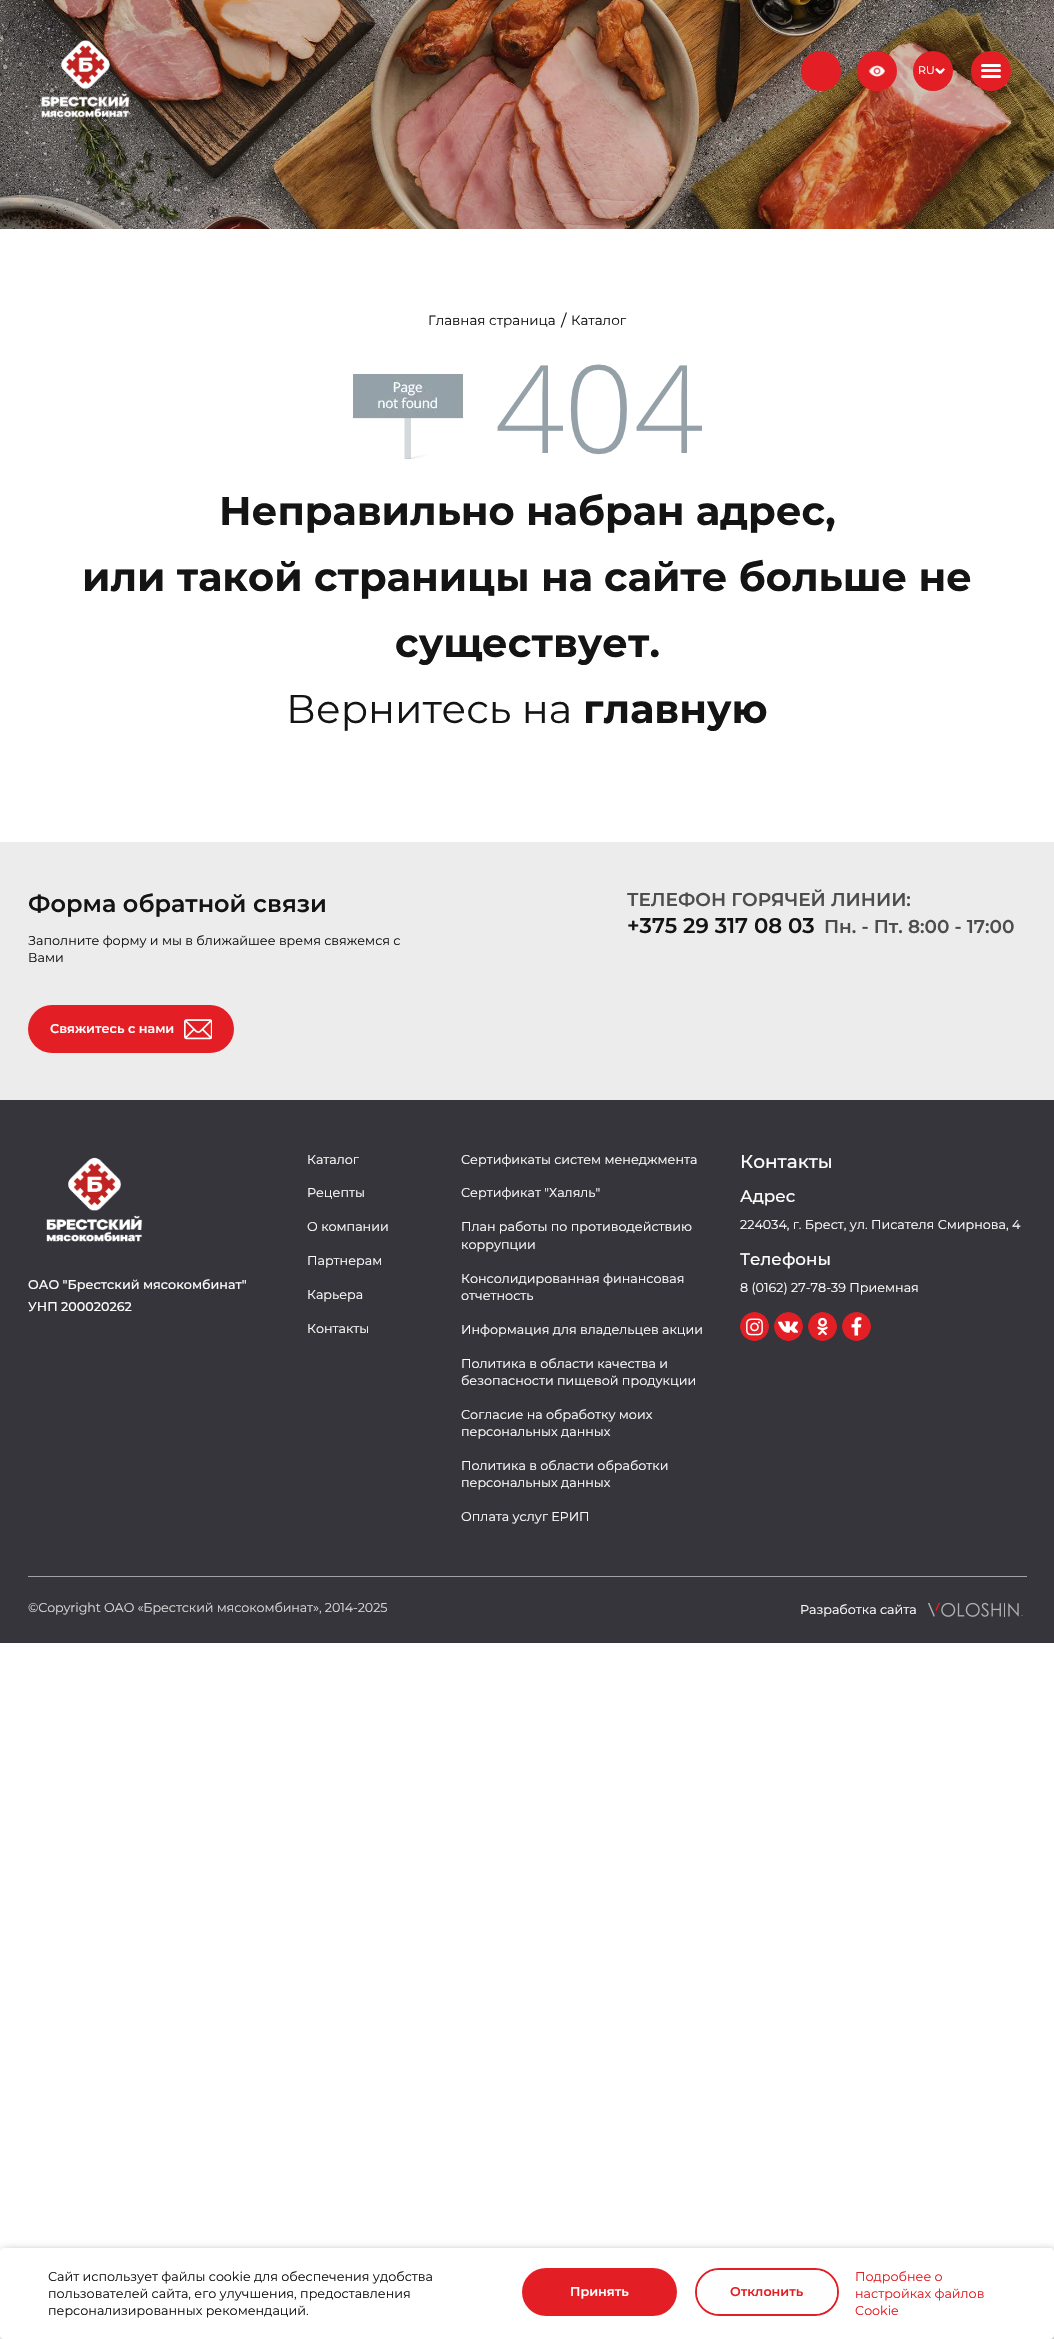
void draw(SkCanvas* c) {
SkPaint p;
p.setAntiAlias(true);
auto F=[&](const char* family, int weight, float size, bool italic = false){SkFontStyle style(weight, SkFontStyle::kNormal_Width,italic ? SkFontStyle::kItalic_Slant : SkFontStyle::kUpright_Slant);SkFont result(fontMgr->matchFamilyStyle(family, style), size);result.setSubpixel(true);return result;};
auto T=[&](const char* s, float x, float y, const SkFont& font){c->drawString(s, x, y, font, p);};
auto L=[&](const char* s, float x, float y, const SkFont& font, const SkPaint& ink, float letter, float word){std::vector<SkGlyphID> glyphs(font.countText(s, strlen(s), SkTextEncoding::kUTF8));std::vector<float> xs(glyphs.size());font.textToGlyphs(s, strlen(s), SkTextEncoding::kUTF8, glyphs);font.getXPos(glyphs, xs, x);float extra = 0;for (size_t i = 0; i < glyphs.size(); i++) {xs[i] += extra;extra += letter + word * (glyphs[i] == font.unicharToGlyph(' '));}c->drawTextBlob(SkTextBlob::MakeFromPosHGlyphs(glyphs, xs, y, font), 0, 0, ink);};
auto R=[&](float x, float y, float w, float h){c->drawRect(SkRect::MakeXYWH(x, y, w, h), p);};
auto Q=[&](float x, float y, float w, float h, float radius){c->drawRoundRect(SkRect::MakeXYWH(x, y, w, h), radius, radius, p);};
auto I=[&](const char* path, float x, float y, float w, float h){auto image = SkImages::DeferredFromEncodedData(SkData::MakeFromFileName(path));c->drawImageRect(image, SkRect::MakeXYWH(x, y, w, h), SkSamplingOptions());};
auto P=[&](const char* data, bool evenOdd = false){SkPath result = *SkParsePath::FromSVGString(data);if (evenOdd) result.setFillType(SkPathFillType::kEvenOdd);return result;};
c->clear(0xffffffff);
I("3.png",0,0,1054,229);
I("1.png",41,40,89,78);
p.setColor(0xffe31e24);
c->drawCircle(821,71,20,p);
c->drawCircle(877,71,20,p);
I("2.png",868,65,17,12);
c->drawCircle(933,71,20,p);
auto f1 = F("Montserrat",400,11);
p.setColor(0xfffffefe);
T("RU",918,74,f1);
c->drawPath(P("M935 69.5l2-1.5l4 4l-1.5 2z"),p);
c->drawPath(P("M943.5 68l1.5 1.5l-4 4.5l-2-2z"),p);
p.setColor(0xffe31e24);
c->drawCircle(991,71,20,p);
p.setColor(0xfffffefe);
Q(981,64,20,3,1.5);
Q(981,69,20,3,1.5);
Q(981,75,20,3,1.5);
auto f2 = F("Montserrat",400,13.5);
p.setColor(0xff141414);
T("Главная страница",428,325,f2);
auto f3 = F("Montserrat",400,16);
T("/",561,326,f3);
T("Каталог",571,325,f2);
I("4.png",353,364,349,95);
auto f4 = F("Montserrat",700,40);
T("Неправильно набран адрес,",219,525,f4);
T("или такой страницы на сайте больше не",82,591,f4);
T("существует.",395,657,f4);
auto f5 = F("Montserrat",400,40);
T("Вернитесь на",286,723,f5);
T("главную",583,723,f4);
p.setColor(0xffececec);
R(0,842,1054,258);
auto f6 = F("Montserrat",600,24);
p.setColor(0xff141414);
T("Форма обратной связи",28,912,f6);
auto f7 = F("Montserrat",400,12.7);
T("Заполните форму и мы в ближайшее время свяжемся с",28,945,f7);
T("Вами",28,962,f7);
auto f8 = F("Montserrat",600,18.5);
p.setColor(0xff4d4d4d);
T("ТЕЛЕФОН ГОРЯЧЕЙ ЛИНИИ:",627,906,f8);
auto f9 = F("Montserrat",600,21.25);
p.setColor(0xff141414);
T("+375 29 317 08 03",627,933,f9);
p.setColor(0xff4d4d4d);
T("Пн. - Пт. 8:00 - 17:00",824,933,f8);
p.setColor(0xffe31e24);
Q(28,1005,206,48,24);
auto f10 = F("Montserrat",600,12.7);
p.setColor(0xfffffefe);
T("Свяжитесь с нами",50,1033,f10);
I("5.png",184,1019,28,21);
p.setColor(0xff36353b);
R(0,1100,1054,543);
I("6.png",46,1157,97,85);
auto f11 = F("Montserrat",500,12.7);
p.setColor(0xfffffefe);
T("ОАО \"Брестский мясокомбинат\"",28,1289,f11);
T("УНП 200020262",28,1311,f11);
T("Каталог",307,1164,f7);
T("Рецепты",307,1197,f7);
T("О компании",307,1231,f7);
T("Партнерам",307,1265,f7);
T("Карьера",307,1299,f7);
T("Контакты",307,1333,f7);
T("Сертификаты систем менеджмента",461,1164,f7);
T("Сертификат \"Халяль\"",461,1197,f7);
T("План работы по противодействию",461,1231,f7);
T("коррупции",461,1249,f7);
T("Консолидированная финансовая",461,1283,f7);
T("отчетность",461,1300,f7);
T("Информация для владельцев акции",461,1334,f7);
T("Политика в области качества и",461,1368,f7);
T("безопасности пищевой продукции",461,1385,f7);
T("Согласие на обработку моих",461,1419,f7);
T("персональных данных",461,1436,f7);
T("Политика в области обработки",461,1470,f7);
T("персональных данных",461,1487,f7);
T("Оплата услуг ЕРИП",461,1521,f7);
auto f12 = F("Montserrat",500,18.5);
T("Контакты",740,1168,f12);
auto f13 = F("Montserrat",500,16.75);
T("Адрес",740,1202,f13);
T("224034, г. Брест, ул. Писателя Смирнова, 4",740,1229,f7);
T("Телефоны",740,1265,f13);
T("8 (0162) 27-78-39 Приемная",740,1292,f7);
I("7.png",740,1312,29,29);
I("8.png",774,1312,29,29);
I("9.png",808,1312,29,29);
I("10.png",842,1312,29,29);
p.setColor(0xffa3a3a3);
R(28,1576,999,1);
p.setColor(0xffd7d7d8);
L("©Copyright OAO «Брестский мясокомбинат», 2014-2025",28,1612,f7,p,-.1,0);
p.setColor(0xfffffefe);
T("Разработка сайта",800,1614,f7);
I("11.png",928,1602,95,15);
p.setColor(0x66000000);
p.setMaskFilter(SkMaskFilter::MakeBlur(kNormal_SkBlurStyle, 5));
c->drawRoundRect(SkRect::MakeXYWH(2,2251,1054,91),4,4,p);
p.setMaskFilter(nullptr);
p.setColor(0xffffffff);
Q(0,2248,1054,91,4);
p.setColor(0xff141414);
T("Сайт использует файлы cookie для обеспечения удобства",48,2281,f7);
T("пользователей сайта, его улучшения, предоставления",48,2298,f7);
T("персонализированных рекомендаций.",48,2315,f7);
p.setColor(0xffe31e24);
Q(522,2268,155,48,24);
p.setColor(0xfffffefe);
T("Принять",570,2296,f10);
p.setStroke(true);
p.setStrokeWidth(2);
p.setColor(0xffe31e24);
c->drawRoundRect(SkRect::MakeXYWH(696,2269,142,46),23,23,p);
p.setStroke(false);
p.setColor(0xfffffefe);
Q(697,2270,140,44,22);
p.setColor(0xffe31e24);
T("Отклонить",730,2296,f10);
T("Подробнее о",855,2281,f7);
T("настройках файлов",855,2298,f7);
T("Cookie",855,2315,f7);
}
